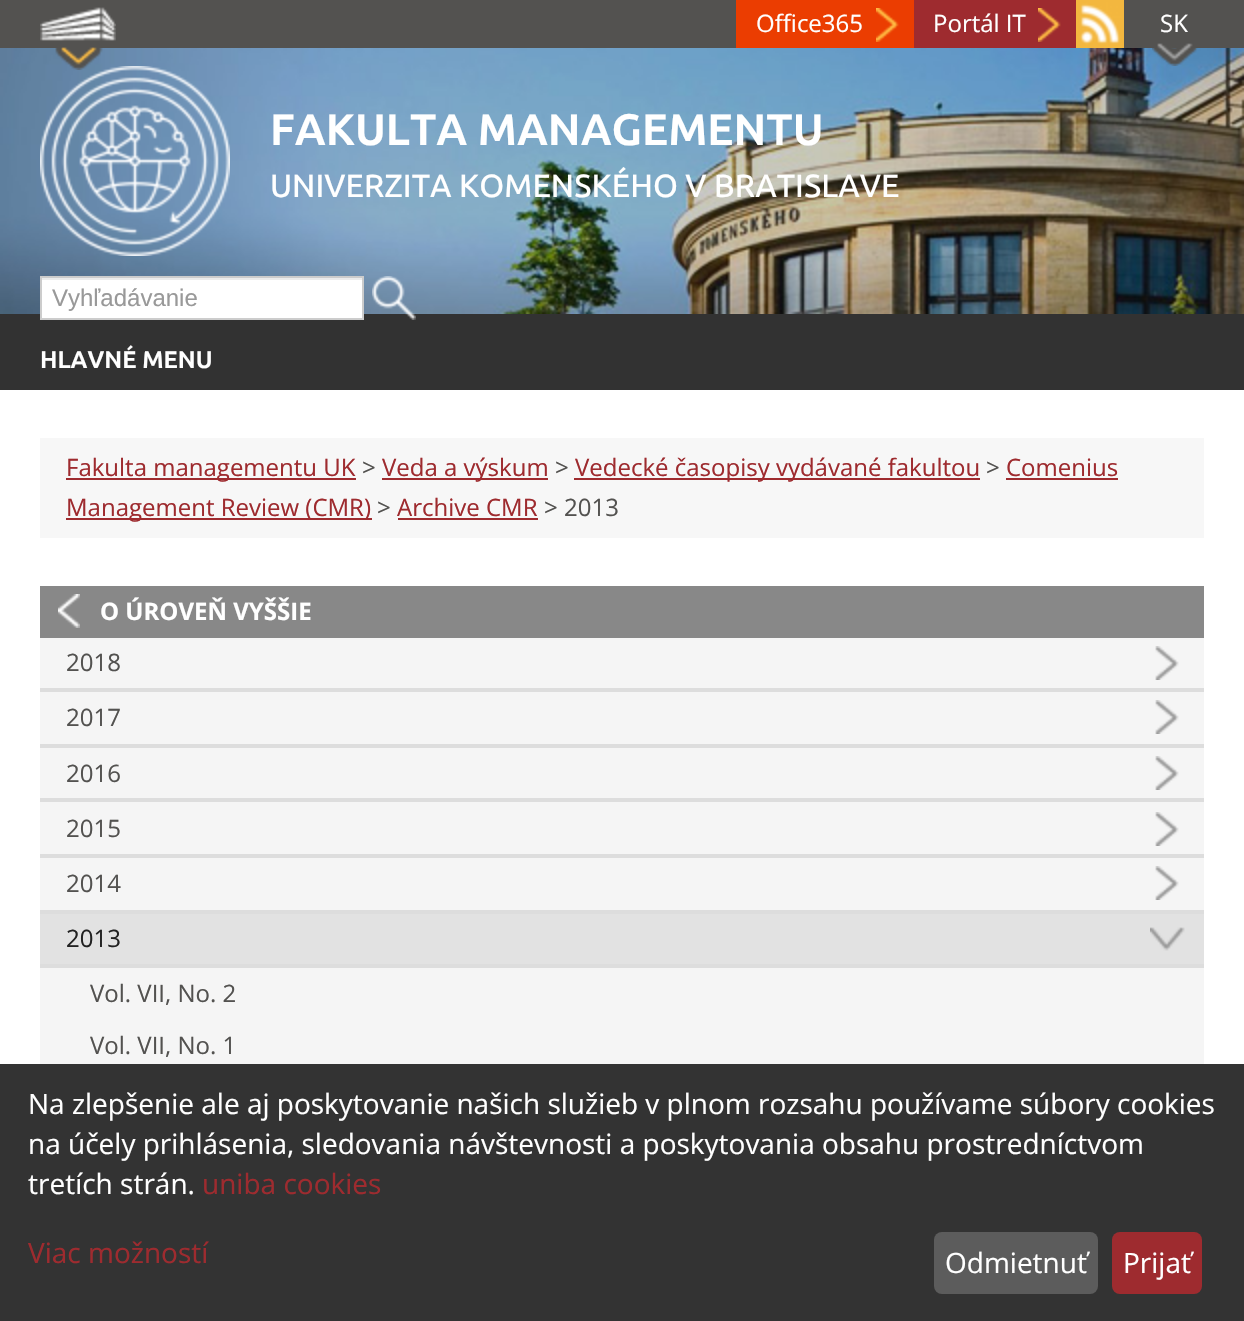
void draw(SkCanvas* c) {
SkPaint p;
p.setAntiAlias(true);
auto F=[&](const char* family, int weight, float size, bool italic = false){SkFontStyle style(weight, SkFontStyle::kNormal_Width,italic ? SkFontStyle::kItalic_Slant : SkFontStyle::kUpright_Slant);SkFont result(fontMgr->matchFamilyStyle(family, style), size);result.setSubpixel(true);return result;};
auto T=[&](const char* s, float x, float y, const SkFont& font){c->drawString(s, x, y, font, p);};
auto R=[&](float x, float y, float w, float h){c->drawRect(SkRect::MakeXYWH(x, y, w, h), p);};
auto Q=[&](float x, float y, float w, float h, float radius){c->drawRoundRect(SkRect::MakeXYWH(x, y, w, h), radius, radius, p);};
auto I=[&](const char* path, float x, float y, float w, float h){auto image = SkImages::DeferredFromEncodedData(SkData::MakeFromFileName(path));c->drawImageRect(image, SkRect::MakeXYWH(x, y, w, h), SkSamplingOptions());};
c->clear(0xffffffff);
p.setColor(0xff535250);
R(0,0,1244,48);
I("6.png",0,48,1244,266);
I("7.png",40,66,190,190);
I("1.png",40,7,76,63);
p.setColor(0xffeb3d01);
R(736,0,178,48);
I("2.png",876,8,23,34);
auto f1 = F("Open Sans",400,24);
p.setColor(0xffffffff);
T("Office365",756,32,f1);
p.setColor(0xff9e2b2f);
R(914,0,162,48);
I("3.png",1038,8,23,34);
p.setColor(0xffffffff);
T("Portál IT",933,32,f1);
I("4.png",1076,0,48,48);
I("5.png",1152,43,46,23);
T("SK",1160,32,f1);
p.setColor(0xff323232);
R(0,314,1244,76);
auto f2 = F("Ubuntu",700,44);
p.setColor(0xffffffff);
T("FAKULTA MANAGEMENTU",270,145,f2);
auto f3 = F("Ubuntu",500,32);
T("UNIVERZITA KOMENSKÉHO V BRATISLAVE",270,197,f3);
R(42,280,320,38);
p.setColor(0xffececec);
R(42,278,320,2);
p.setStroke(true);
p.setStrokeWidth(2);
p.setColor(0xffcccccc);
c->drawRect(SkRect::MakeXYWH(41,277,322,42),p);
auto f4 = F("Liberation Sans",400,24);
p.setStroke(false);
p.setColor(0xff999999);
T("Vyhľadávanie",52,306,f4);
I("8.png",372,276,44,44);
auto f5 = F("Ubuntu",700,24);
p.setColor(0xffffffff);
T("HLAVNÉ MENU",40,368,f5);
p.setColor(0xfff7f7f7);
R(40,438,1164,100);
p.setColor(0xff9e2b2f);
R(66,478,290,2);
T("Fakulta managementu UK",66,476,f1);
p.setColor(0xff535250);
T(">",362,476,f1);
p.setColor(0xff9e2b2f);
R(382,478,166,2);
T("Veda a výskum",382,476,f1);
p.setColor(0xff535250);
T(">",555,476,f1);
p.setColor(0xff9e2b2f);
R(574,478,406,2);
T("Vedecké časopisy vydávané fakultou",575,476,f1);
p.setColor(0xff535250);
T(">",986,476,f1);
p.setColor(0xff9e2b2f);
T("Comenius",1006,476,f1);
R(1006,478,112,2);
R(66,518,306,2);
T("Management Review (CMR)",66,516,f1);
p.setColor(0xff535250);
T(">",377,516,f1);
p.setColor(0xff9e2b2f);
T("Archive CMR",397,516,f1);
R(398,518,140,2);
p.setColor(0xff535250);
T("> 2013",544,516,f1);
p.setColor(0xfff5f5f5);
R(40,638,1164,426);
p.setColor(0xff888888);
R(40,586,1164,52);
I("9.png",58,594,22,34);
auto f6 = F("Open Sans",700,24);
p.setColor(0xffffffff);
T("O ÚROVEŇ VYŠŠIE",100,620,f6);
p.setColor(0xffdddddd);
R(40,688,1164,4);
I("10.png",1155,646,24,34);
p.setColor(0xff535250);
T("2018",66,671,f1);
p.setColor(0xffdddddd);
R(40,744,1164,4);
I("10.png",1155,700,24,34);
p.setColor(0xff535250);
T("2017",66,726,f1);
p.setColor(0xffdddddd);
R(40,798,1164,4);
I("10.png",1155,756,24,34);
p.setColor(0xff535250);
T("2016",66,782,f1);
p.setColor(0xffdddddd);
R(40,854,1164,4);
I("10.png",1155,812,24,34);
p.setColor(0xff535250);
T("2015",66,837,f1);
p.setColor(0xffdddddd);
R(40,910,1164,4);
I("10.png",1155,866,24,34);
p.setColor(0xff535250);
T("2014",66,892,f1);
p.setColor(0xffe2e2e2);
R(40,914,1164,50);
I("11.png",1150,927,35,24);
p.setColor(0xff222222);
T("2013",66,947,f1);
p.setColor(0xffdddddd);
R(40,964,1164,4);
p.setColor(0xff535250);
T("Vol. VII, No. 2",90,1002,f1);
T("Vol. VII, No. 1",90,1054,f1);
p.setColor(0xff333333);
R(0,1064,1244,257);
auto f7 = F("Open Sans",400,28);
p.setColor(0xffffffff);
T("Na zlepšenie ale aj poskytovanie našich služieb v plnom rozsahu používame súbory cookies",28,1114,f7);
T("na účely prihlásenia, sledovania návštevnosti a poskytovania obsahu prostredníctvom",28,1154,f7);
T("tretích strán.",28,1194,f7);
p.setColor(0xff9e2b2f);
T("uniba cookies",202,1194,f7);
T("Viac možností",28,1263,f7);
p.setColor(0xff5c5c5c);
Q(934,1232,164,62,8);
p.setColor(0xffffffff);
T("Odmietnuť",945,1273,f7);
p.setColor(0xff9e2b2f);
Q(1112,1232,90,62,8);
p.setColor(0xffffffff);
T("Prijať",1123,1273,f7);
}
